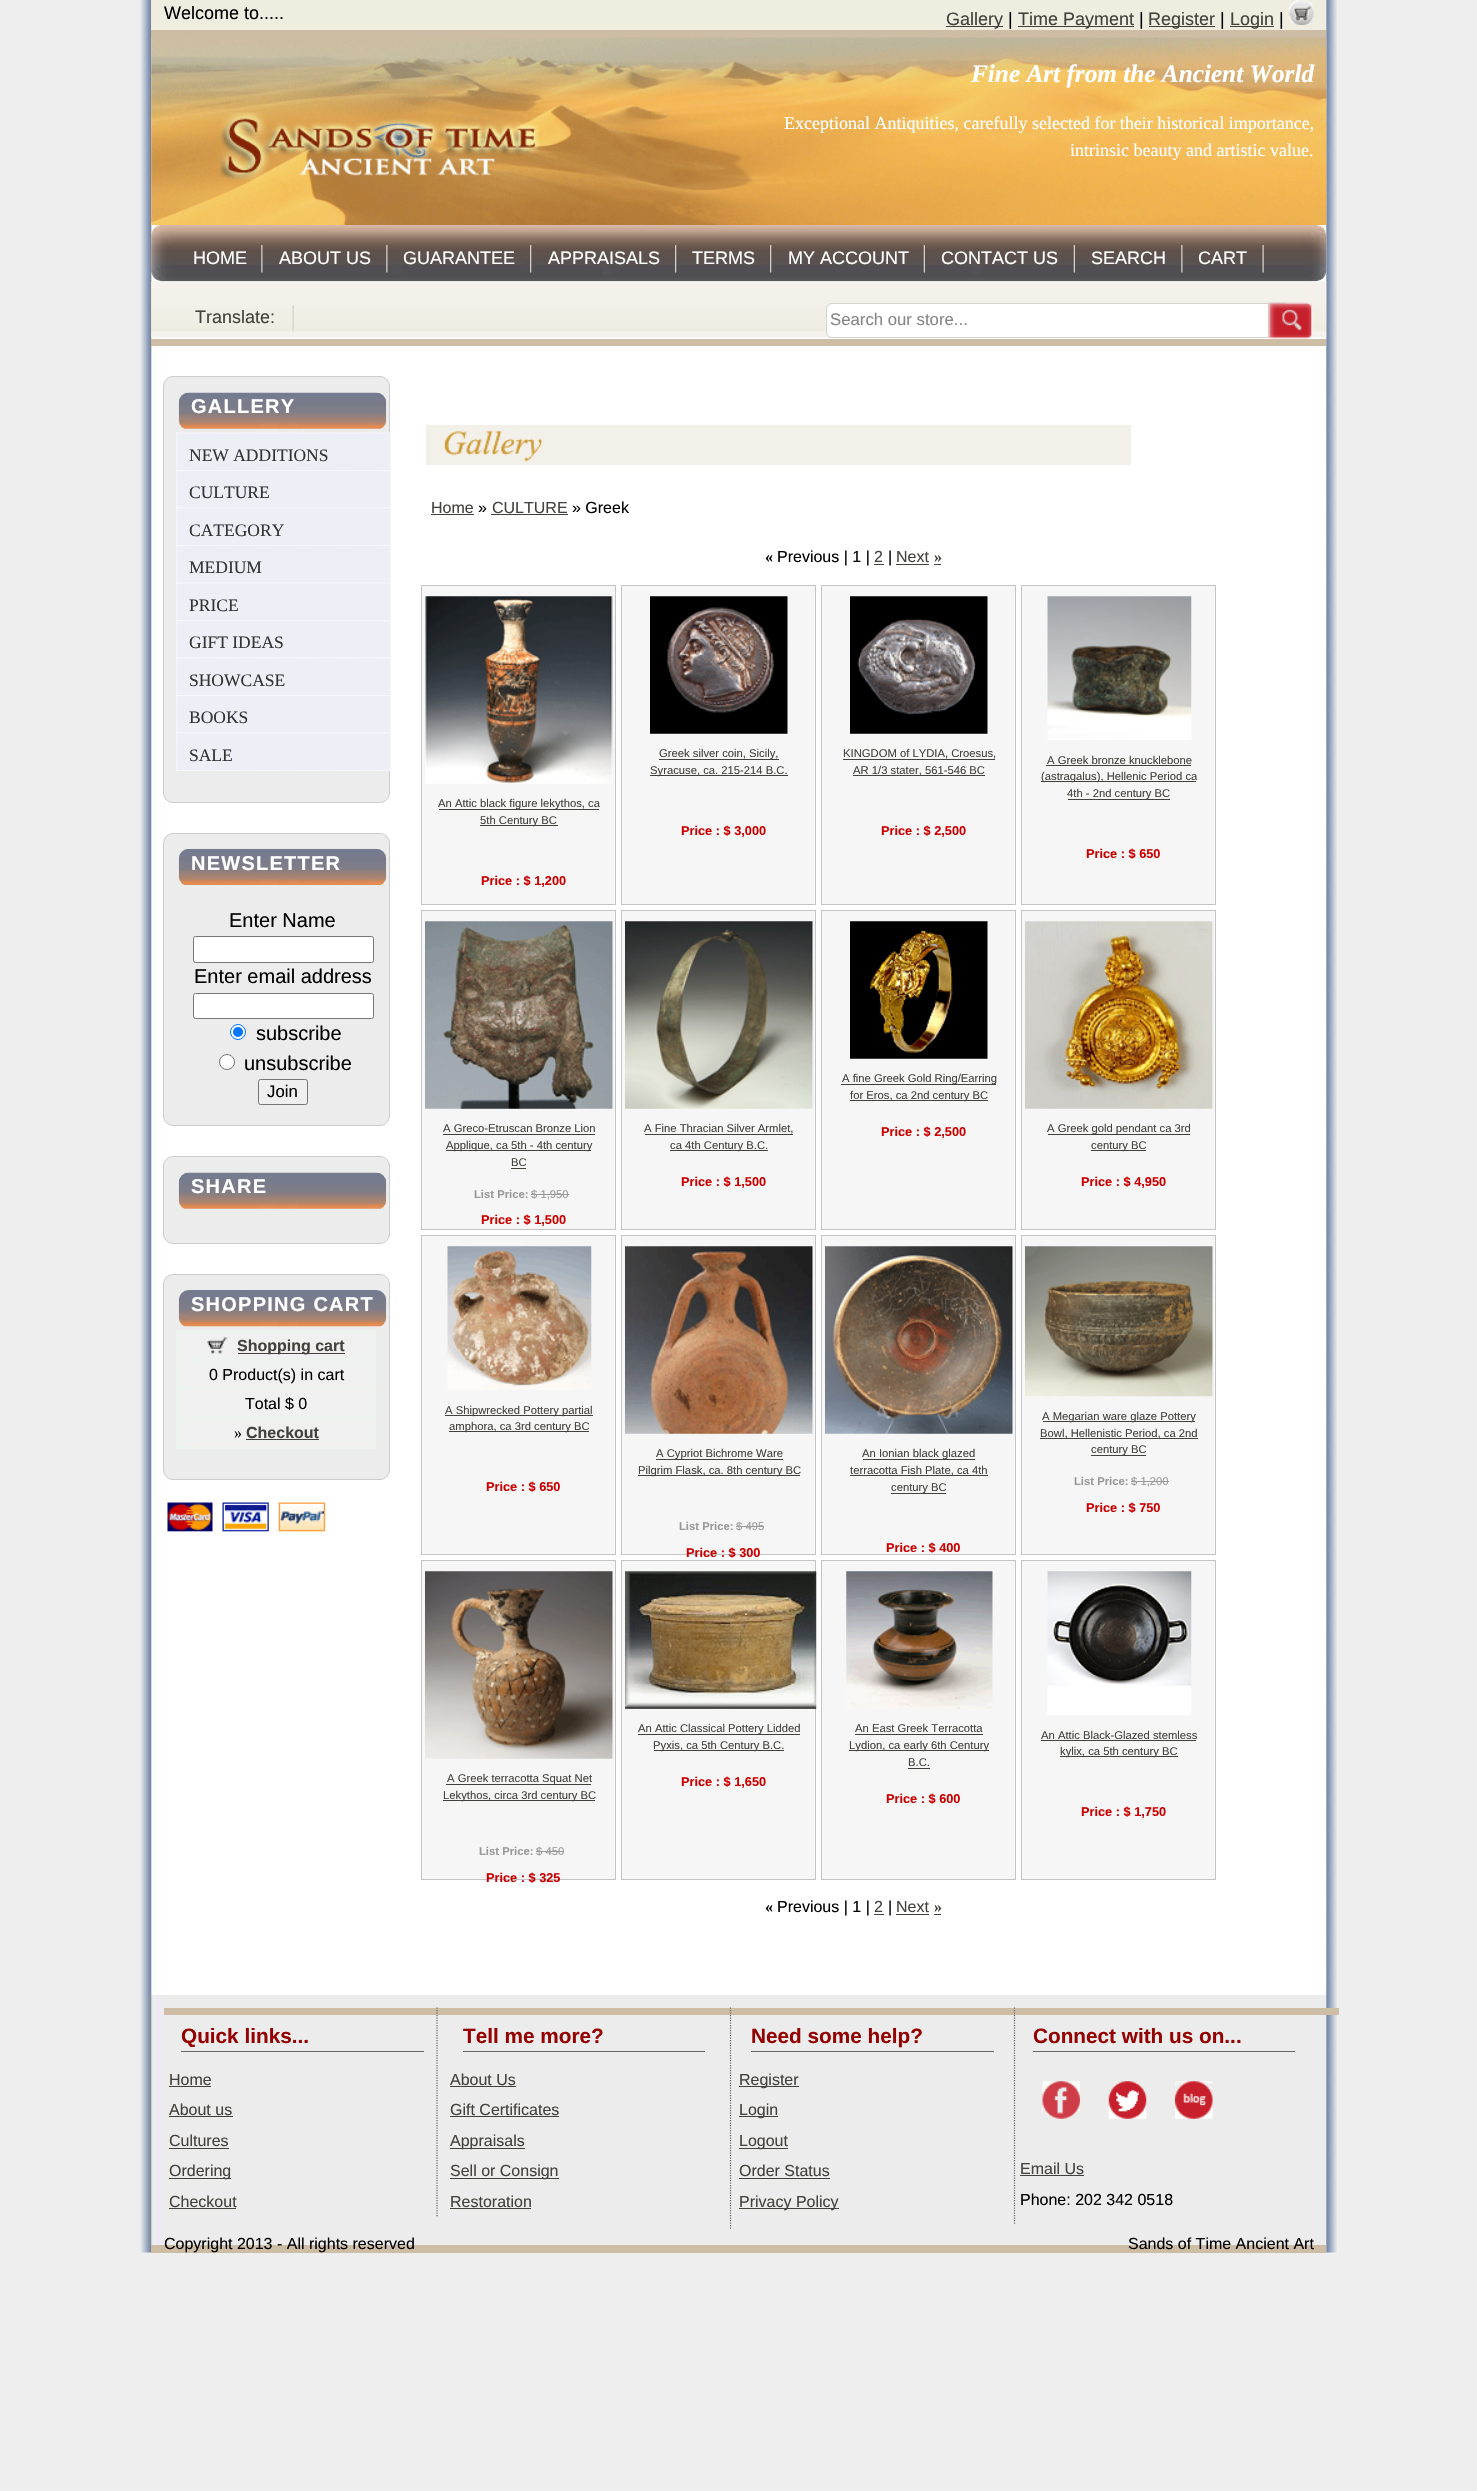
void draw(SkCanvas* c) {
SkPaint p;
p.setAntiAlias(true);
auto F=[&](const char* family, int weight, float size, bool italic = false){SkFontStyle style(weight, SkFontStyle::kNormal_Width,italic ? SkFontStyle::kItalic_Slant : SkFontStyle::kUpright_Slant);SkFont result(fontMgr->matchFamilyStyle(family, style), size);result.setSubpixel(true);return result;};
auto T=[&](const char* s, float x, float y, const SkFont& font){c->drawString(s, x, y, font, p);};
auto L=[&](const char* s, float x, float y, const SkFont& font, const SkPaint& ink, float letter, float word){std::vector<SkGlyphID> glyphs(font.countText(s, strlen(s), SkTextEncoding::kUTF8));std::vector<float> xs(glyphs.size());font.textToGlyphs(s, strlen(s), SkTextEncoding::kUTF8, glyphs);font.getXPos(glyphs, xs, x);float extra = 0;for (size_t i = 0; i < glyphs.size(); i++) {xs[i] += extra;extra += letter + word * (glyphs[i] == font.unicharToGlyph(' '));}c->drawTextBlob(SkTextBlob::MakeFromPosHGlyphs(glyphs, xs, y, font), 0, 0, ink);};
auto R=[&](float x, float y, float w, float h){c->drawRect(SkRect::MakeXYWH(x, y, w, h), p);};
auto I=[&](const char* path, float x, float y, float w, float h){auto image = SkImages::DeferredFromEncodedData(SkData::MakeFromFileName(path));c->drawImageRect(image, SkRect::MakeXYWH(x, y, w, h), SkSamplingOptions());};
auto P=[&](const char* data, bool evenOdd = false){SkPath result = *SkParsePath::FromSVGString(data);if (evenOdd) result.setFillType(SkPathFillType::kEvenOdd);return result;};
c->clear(0xffeeeeee);
I("1.png",140,0,1197,2253);
p.setColor(0xffefece0);
R(151,0,1175,30);
auto f1 = F("Liberation Sans",400,18);
p.setColor(0xff000000);
T("Welcome to.....",164,19,f1);
p.setColor(0xff42413c);
R(946,26,57,1);
T("Gallery",946,25,f1);
p.setColor(0xff000000);
T("|",1008,25,f1);
p.setColor(0xff42413c);
R(1018,26,116,1);
T("Time Payment",1018,25,f1);
p.setColor(0xff000000);
T("|",1139,25,f1);
p.setColor(0xff42413c);
R(1149,26,66,1);
T("Register",1148,25,f1);
p.setColor(0xff000000);
T("|",1220,25,f1);
p.setColor(0xff42413c);
R(1230,26,44,1);
T("Login",1230,25,f1);
p.setColor(0xff000000);
T("|",1279,25,f1);
I("2.png",1288,0,26,25);
p.setColor(0xffcdbda5);
R(151,30,1175,8);
I("3.png",151,37,1176,188);
auto f2 = F("Liberation Serif",700,25.25,true);
p.setColor(0xffffffff);
T("Fine Art from the Ancient World",971,82,f2);
auto f3 = F("Liberation Serif",400,18);
T("Exceptional Antiquities, carefully selected for their historical importance,",784,129,f3);
T("intrinsic beauty and artistic value.",1070,156,f3);
I("4.png",151,225,1176,57);
I("5.png",261,245,2,28);
T("HOME",193,264,f1);
I("5.png",386,245,2,28);
T("ABOUT US",279,264,f1);
I("6.png",530,245,2,28);
T("GUARANTEE",403,264,f1);
I("7.png",675,245,2,28);
T("APPRAISALS",548,264,f1);
I("8.png",770,245,2,28);
T("TERMS",692,264,f1);
I("9.png",923,245,2,28);
T("MY ACCOUNT",788,264,f1);
I("9.png",1073,245,2,28);
T("CONTACT US",941,264,f1);
I("5.png",1181,245,2,28);
T("SEARCH",1091,264,f1);
I("10.png",1262,245,2,28);
T("CART",1198,264,f1);
I("11.png",151,281,1176,57);
I("12.png",292,305,2,27);
p.setColor(0xff42413c);
T("Translate:",195,323,f1);
p.setColor(0xffffffff);
c->drawPath(P("M832 303.5h436.5v34h-436.5c-3 0-5.5-2.5-5.5-5.5v-23c0-3 2.5-5.5 5.5-5.5z"),p);
p.setStroke(true);
p.setStrokeWidth(1);
p.setColor(0xffd7d1c9);
c->drawPath(P("M832 303.5h436.5v34h-436.5c-3 0-5.5-2.5-5.5-5.5v-23c0-3 2.5-5.5 5.5-5.5z"),p);
auto f4 = F("Liberation Sans",400,16.75);
p.setStroke(false);
p.setColor(0xff858585);
T("Search our store...",830,325,f4);
I("13.png",1268,302,45,37);
p.setColor(0xffcdbda5);
R(151,339,1175,7);
p.setColor(0xffececec);
c->drawRoundRect(SkRect::MakeXYWH(163.5,376.5,226,426),9.5,9.5,p);
p.setStroke(true);
p.setColor(0xffcccccc);
c->drawRoundRect(SkRect::MakeXYWH(163.5,376.5,226,426),9.5,9.5,p);
I("14.png",178,392,209,37);
auto f5 = F("Liberation Sans",700,20);
p.setStroke(false);
p.setColor(0xffffffff);
L("GALLERY",191,413,f5,p,1.25,0);
p.setColor(0xffeceff6);
R(176,433,215,37);
p.setStroke(true);
p.setStrokeWidth(1.2);
p.setColor(0xffffffff);
p.setPathEffect(SkDashPathEffect::Make({{1.25f,1.25f}}, 0));
c->drawPath(P("M176 433h215"),p);
p.setPathEffect(nullptr);
p.setPathEffect(SkDashPathEffect::Make({{1.25f,1.25f}}, 0));
c->drawPath(P("M390.5 432.5v38.5"),p);
p.setPathEffect(nullptr);
p.setPathEffect(SkDashPathEffect::Make({{1.25f,1.25f}}, 0));
c->drawPath(P("M176 470.5h215"),p);
p.setPathEffect(nullptr);
p.setPathEffect(SkDashPathEffect::Make({{1.25f,1.25f}}, 0));
c->drawPath(P("M177 432.5v38.5"),p);
p.setPathEffect(nullptr);
auto f6 = F("Liberation Serif",400,17.5);
p.setStroke(false);
p.setColor(0xff333333);
T("NEW ADDITIONS",189,461,f6);
p.setColor(0xffeceff6);
R(176,470,215,38);
p.setStroke(true);
p.setColor(0xffffffff);
p.setPathEffect(SkDashPathEffect::Make({{1.25f,1.25f}}, 0));
c->drawPath(P("M176 470.5h215"),p);
p.setPathEffect(nullptr);
p.setPathEffect(SkDashPathEffect::Make({{1.25f,1.25f}}, 0));
c->drawPath(P("M390.5 470v39"),p);
p.setPathEffect(nullptr);
p.setPathEffect(SkDashPathEffect::Make({{1.25f,1.25f}}, 0));
c->drawPath(P("M176 508h215"),p);
p.setPathEffect(nullptr);
p.setPathEffect(SkDashPathEffect::Make({{1.25f,1.25f}}, 0));
c->drawPath(P("M177 470v39"),p);
p.setPathEffect(nullptr);
p.setStroke(false);
p.setColor(0xff333333);
T("CULTURE",189,498,f6);
p.setColor(0xffeceff6);
R(176,508,215,37);
p.setStroke(true);
p.setColor(0xffffffff);
p.setPathEffect(SkDashPathEffect::Make({{1.25f,1.25f}}, 0));
c->drawPath(P("M176 508h215"),p);
p.setPathEffect(nullptr);
p.setPathEffect(SkDashPathEffect::Make({{1.25f,1.25f}}, 0));
c->drawPath(P("M390.5 507.5v38.5"),p);
p.setPathEffect(nullptr);
p.setPathEffect(SkDashPathEffect::Make({{1.25f,1.25f}}, 0));
c->drawPath(P("M176 545.5h215"),p);
p.setPathEffect(nullptr);
p.setPathEffect(SkDashPathEffect::Make({{1.25f,1.25f}}, 0));
c->drawPath(P("M177 507.5v38.5"),p);
p.setPathEffect(nullptr);
p.setStroke(false);
p.setColor(0xff333333);
T("CATEGORY",189,536,f6);
p.setColor(0xffeceff6);
R(176,545,215,38);
p.setStroke(true);
p.setColor(0xffffffff);
p.setPathEffect(SkDashPathEffect::Make({{1.25f,1.25f}}, 0));
c->drawPath(P("M176 545.5h215"),p);
p.setPathEffect(nullptr);
p.setPathEffect(SkDashPathEffect::Make({{1.25f,1.25f}}, 0));
c->drawPath(P("M390.5 545v39"),p);
p.setPathEffect(nullptr);
p.setPathEffect(SkDashPathEffect::Make({{1.25f,1.25f}}, 0));
c->drawPath(P("M176 583h215"),p);
p.setPathEffect(nullptr);
p.setPathEffect(SkDashPathEffect::Make({{1.25f,1.25f}}, 0));
c->drawPath(P("M177 545v39"),p);
p.setPathEffect(nullptr);
p.setStroke(false);
p.setColor(0xff333333);
T("MEDIUM",189,573,f6);
p.setColor(0xffeceff6);
R(176,583,215,37);
p.setStroke(true);
p.setColor(0xffffffff);
p.setPathEffect(SkDashPathEffect::Make({{1.25f,1.25f}}, 0));
c->drawPath(P("M176 583h215"),p);
p.setPathEffect(nullptr);
p.setPathEffect(SkDashPathEffect::Make({{1.25f,1.25f}}, 0));
c->drawPath(P("M390.5 582.5v38.5"),p);
p.setPathEffect(nullptr);
p.setPathEffect(SkDashPathEffect::Make({{1.25f,1.25f}}, 0));
c->drawPath(P("M176 620.5h215"),p);
p.setPathEffect(nullptr);
p.setPathEffect(SkDashPathEffect::Make({{1.25f,1.25f}}, 0));
c->drawPath(P("M177 582.5v38.5"),p);
p.setPathEffect(nullptr);
p.setStroke(false);
p.setColor(0xff333333);
T("PRICE",189,611,f6);
p.setColor(0xffeceff6);
R(176,620,215,38);
p.setStroke(true);
p.setColor(0xffffffff);
p.setPathEffect(SkDashPathEffect::Make({{1.25f,1.25f}}, 0));
c->drawPath(P("M176 620.5h215"),p);
p.setPathEffect(nullptr);
p.setPathEffect(SkDashPathEffect::Make({{1.25f,1.25f}}, 0));
c->drawPath(P("M390.5 620v39"),p);
p.setPathEffect(nullptr);
p.setPathEffect(SkDashPathEffect::Make({{1.25f,1.25f}}, 0));
c->drawPath(P("M176 658h215"),p);
p.setPathEffect(nullptr);
p.setPathEffect(SkDashPathEffect::Make({{1.25f,1.25f}}, 0));
c->drawPath(P("M177 620v39"),p);
p.setPathEffect(nullptr);
p.setStroke(false);
p.setColor(0xff333333);
T("GIFT IDEAS",189,648,f6);
p.setColor(0xffeceff6);
R(176,658,215,37);
p.setStroke(true);
p.setColor(0xffffffff);
p.setPathEffect(SkDashPathEffect::Make({{1.25f,1.25f}}, 0));
c->drawPath(P("M176 658h215"),p);
p.setPathEffect(nullptr);
p.setPathEffect(SkDashPathEffect::Make({{1.25f,1.25f}}, 0));
c->drawPath(P("M390.5 657.5v38.5"),p);
p.setPathEffect(nullptr);
p.setPathEffect(SkDashPathEffect::Make({{1.25f,1.25f}}, 0));
c->drawPath(P("M176 695.5h215"),p);
p.setPathEffect(nullptr);
p.setPathEffect(SkDashPathEffect::Make({{1.25f,1.25f}}, 0));
c->drawPath(P("M177 657.5v38.5"),p);
p.setPathEffect(nullptr);
p.setStroke(false);
p.setColor(0xff333333);
T("SHOWCASE",189,686,f6);
p.setColor(0xffeceff6);
R(176,695,215,38);
p.setStroke(true);
p.setColor(0xffffffff);
p.setPathEffect(SkDashPathEffect::Make({{1.25f,1.25f}}, 0));
c->drawPath(P("M176 695.5h215"),p);
p.setPathEffect(nullptr);
p.setPathEffect(SkDashPathEffect::Make({{1.25f,1.25f}}, 0));
c->drawPath(P("M390.5 695v39"),p);
p.setPathEffect(nullptr);
p.setPathEffect(SkDashPathEffect::Make({{1.25f,1.25f}}, 0));
c->drawPath(P("M176 733h215"),p);
p.setPathEffect(nullptr);
p.setPathEffect(SkDashPathEffect::Make({{1.25f,1.25f}}, 0));
c->drawPath(P("M177 695v39"),p);
p.setPathEffect(nullptr);
p.setStroke(false);
p.setColor(0xff333333);
T("BOOKS",189,723,f6);
p.setColor(0xffeceff6);
R(176,733,215,38);
p.setStroke(true);
p.setColor(0xffffffff);
p.setPathEffect(SkDashPathEffect::Make({{1.25f,1.25f}}, 0));
c->drawPath(P("M176 733h215"),p);
p.setPathEffect(nullptr);
p.setPathEffect(SkDashPathEffect::Make({{1.25f,1.25f}}, 0));
c->drawPath(P("M390.5 732.5v38.5"),p);
p.setPathEffect(nullptr);
p.setPathEffect(SkDashPathEffect::Make({{1.25f,1.25f}}, 0));
c->drawPath(P("M176 770.5h215"),p);
p.setPathEffect(nullptr);
p.setPathEffect(SkDashPathEffect::Make({{1.25f,1.25f}}, 0));
c->drawPath(P("M177 732.5v38.5"),p);
p.setPathEffect(nullptr);
p.setStroke(false);
p.setColor(0xff333333);
T("SALE",189,761,f6);
p.setColor(0xffececec);
c->drawRoundRect(SkRect::MakeXYWH(163.5,833.5,226,292),9.5,9.5,p);
p.setStroke(true);
p.setStrokeWidth(1);
p.setColor(0xffcccccc);
c->drawRoundRect(SkRect::MakeXYWH(163.5,833.5,226,292),9.5,9.5,p);
I("15.png",178,848,209,37);
p.setStroke(false);
p.setColor(0xffffffff);
L("NEWSLETTER",191,870,f5,p,1.25,0);
auto f7 = F("Liberation Sans",400,20);
p.setColor(0xff000000);
T("Enter Name",229,927,f7);
p.setColor(0xffffffff);
c->drawRoundRect(SkRect::MakeXYWH(193.5,936.5,180,26),2,2,p);
p.setStroke(true);
p.setColor(0xff767676);
c->drawRoundRect(SkRect::MakeXYWH(193.5,936.5,180,26),2,2,p);
p.setStroke(false);
p.setColor(0xff000000);
T("Enter email address",194,983,f7);
p.setColor(0xffffffff);
c->drawRoundRect(SkRect::MakeXYWH(193.5,993.5,180,25),2,2,p);
p.setStroke(true);
p.setColor(0xff767676);
c->drawRoundRect(SkRect::MakeXYWH(193.5,993.5,180,25),2,2,p);
p.setStroke(false);
p.setColor(0xffffffff);
c->drawCircle(238,1032,7.5,p);
p.setStroke(true);
p.setColor(0xff0075ff);
c->drawCircle(238,1032,7.5,p);
p.setStroke(false);
c->drawCircle(238,1032,5,p);
p.setColor(0xff000000);
T("subscribe",256,1040,f7);
p.setColor(0xffffffff);
c->drawCircle(227,1062,7.5,p);
p.setStroke(true);
p.setColor(0xff767676);
c->drawCircle(227,1062,7.5,p);
p.setStroke(false);
p.setColor(0xff000000);
T("unsubscribe",244,1070,f7);
p.setColor(0xffefefef);
c->drawRoundRect(SkRect::MakeXYWH(258.5,1079.5,49,25),2,2,p);
p.setStroke(true);
p.setColor(0xff767676);
c->drawRoundRect(SkRect::MakeXYWH(258.5,1079.5,49,25),2,2,p);
p.setStroke(false);
p.setColor(0xff000000);
T("Join",267,1097,f4);
p.setColor(0xffececec);
c->drawRoundRect(SkRect::MakeXYWH(163.5,1156.5,226,87),9.5,9.5,p);
p.setStroke(true);
p.setColor(0xffcccccc);
c->drawRoundRect(SkRect::MakeXYWH(163.5,1156.5,226,87),9.5,9.5,p);
I("16.png",178,1172,209,37);
p.setStroke(false);
p.setColor(0xffffffff);
L("SHARE",191,1193,f5,p,1.25,0);
p.setColor(0xffececec);
c->drawRoundRect(SkRect::MakeXYWH(163.5,1274.5,226,205),9.5,9.5,p);
p.setStroke(true);
p.setColor(0xffcccccc);
c->drawRoundRect(SkRect::MakeXYWH(163.5,1274.5,226,205),9.5,9.5,p);
I("17.png",178,1290,209,37);
p.setStroke(false);
p.setColor(0xffffffff);
L("SHOPPING CART",191,1311,f5,p,1.25,0);
p.setColor(0xffecf3ec);
R(176,1330,200,119);
p.setColor(0xfff0f0f0);
R(179,1333,195,26);
I("18.png",207,1337,21,17);
p.setColor(0xff42413c);
R(238,1353,107,1);
auto f8 = F("Liberation Sans",700,16);
T("Shopping cart",237,1351,f8);
p.setColor(0xfff0f0f0);
R(179,1361,195,27);
auto f9 = F("Liberation Sans",400,16);
p.setColor(0xff000000);
T("0 Product(s) in cart",209,1380,f9);
p.setColor(0xfff0f0f0);
R(179,1390,195,26);
p.setColor(0xff000000);
T("Total $ 0",245,1409,f9);
p.setColor(0xfff0f0f0);
R(179,1419,195,27);
auto f10 = F("Liberation Serif",400,16);
p.setColor(0xff000000);
T("»",234,1438,f10);
p.setColor(0xff42413c);
T("Checkout",246,1438,f8);
R(246,1439,73,1);
I("19.png",167,1502,159,30);
p.setColor(0xfff3f0e9);
R(426,425,705,40);
I("20.png",443,430,100,32);
p.setColor(0xff42413c);
T("Home",431,513,f9);
R(431,514,43,1);
p.setColor(0xff000000);
T("»",478,513,f9);
p.setColor(0xff42413c);
T("CULTURE",492,513,f9);
R(491,514,77,1);
p.setColor(0xff000000);
T("» Greek",572,513,f9);
auto f11 = F("Liberation Serif",700,16);
T("«",765,562,f11);
T("Previous | 1 |",777,562,f9);
p.setColor(0xff42413c);
T("2",874,562,f9);
R(874,564,10,1);
p.setColor(0xff000000);
T("|",888,562,f9);
p.setColor(0xff42413c);
T("Next",896,562,f9);
R(896,564,33,1);
T("»",934,562,f11);
R(934,564,7,1);
p.setColor(0xfff6f6f6);
c->drawRect(SkRect::MakeXYWH(421.5,585.5,194,319),p);
p.setStroke(true);
p.setColor(0xffc4c4c4);
c->drawRect(SkRect::MakeXYWH(421.5,585.5,194,319),p);
I("21.png",425,596,188,188);
p.setStroke(false);
p.setColor(0xff42413c);
R(439,809,160,1);
auto f12 = F("Liberation Sans",400,11.25);
T("An Attic black figure lekythos, ca",438,807,f12);
R(480,825,78,1);
T("5th Century BC",480,824,f12);
auto f13 = F("Liberation Sans",700,12.75);
p.setColor(0xffcc0000);
T("Price : $ 1,200",481,885,f13);
p.setColor(0xfff6f6f6);
c->drawRect(SkRect::MakeXYWH(621.5,585.5,194,319),p);
p.setStroke(true);
p.setColor(0xffc4c4c4);
c->drawRect(SkRect::MakeXYWH(621.5,585.5,194,319),p);
I("22.png",650,596,138,138);
p.setStroke(false);
p.setColor(0xff42413c);
R(659,759,120,1);
T("Greek silver coin, Sicily,",659,757,f12);
R(650,775,138,1);
T("Syracuse, ca. 215-214 B.C.",650,774,f12);
p.setColor(0xffcc0000);
T("Price : $ 3,000",681,835,f13);
p.setColor(0xfff6f6f6);
c->drawRect(SkRect::MakeXYWH(821.5,585.5,194,319),p);
p.setStroke(true);
p.setColor(0xffc4c4c4);
c->drawRect(SkRect::MakeXYWH(821.5,585.5,194,319),p);
I("23.png",850,596,138,138);
p.setStroke(false);
p.setColor(0xff42413c);
T("KINGDOM of LYDIA, Croesus,",843,757,f12);
R(843,759,152,1);
R(853,775,132,1);
T("AR 1/3 stater, 561-546 BC",853,774,f12);
p.setColor(0xffcc0000);
T("Price : $ 2,500",881,835,f13);
p.setColor(0xfff6f6f6);
c->drawRect(SkRect::MakeXYWH(1021.5,585.5,194,319),p);
p.setStroke(true);
p.setColor(0xffc4c4c4);
c->drawRect(SkRect::MakeXYWH(1021.5,585.5,194,319),p);
I("24.png",1047,596,145,144);
p.setStroke(false);
p.setColor(0xff42413c);
T("A Greek bronze knucklebone",1047,764,f12);
R(1046,765,145,1);
R(1041,781,155,1);
T("(astragalus), Hellenic Period ca",1041,780,f12);
R(1068,799,102,1);
T("4th - 2nd century BC",1067,797,f12);
p.setColor(0xffcc0000);
T("Price : $ 650",1086,858,f13);
p.setColor(0xfff6f6f6);
c->drawRect(SkRect::MakeXYWH(821.5,910.5,194,319),p);
p.setStroke(true);
p.setColor(0xffc4c4c4);
c->drawRect(SkRect::MakeXYWH(821.5,910.5,194,319),p);
I("25.png",850,921,138,138);
p.setStroke(false);
p.setColor(0xff42413c);
R(841,1084,155,1);
T("A fine Greek Gold Ring/Earring",842,1082,f12);
R(850,1100,138,1);
T("for Eros, ca 2nd century BC",850,1099,f12);
p.setColor(0xffcc0000);
T("Price : $ 2,500",881,1136,f13);
p.setColor(0xfff6f6f6);
c->drawRect(SkRect::MakeXYWH(421.5,910.5,194,319),p);
p.setStroke(true);
p.setColor(0xffc4c4c4);
c->drawRect(SkRect::MakeXYWH(421.5,910.5,194,319),p);
I("26.png",425,921,188,188);
p.setStroke(false);
p.setColor(0xff42413c);
T("A Greco-Etruscan Bronze Lion",443,1132,f12);
R(443,1134,152,1);
R(446,1150,145,1);
T("Applique, ca 5th - 4th century",446,1149,f12);
T("BC",511,1166,f12);
R(511,1168,15,1);
auto f14 = F("Liberation Sans",700,11.25);
p.setColor(0xff999999);
T("List Price:",474,1198,f14);
T("$ 1,950",531,1198,f12);
R(531,1194,38,1);
p.setColor(0xffcc0000);
T("Price : $ 1,500",481,1224,f13);
p.setColor(0xfff6f6f6);
c->drawRect(SkRect::MakeXYWH(621.5,910.5,194,319),p);
p.setStroke(true);
p.setColor(0xffc4c4c4);
c->drawRect(SkRect::MakeXYWH(621.5,910.5,194,319),p);
I("27.png",625,921,188,188);
p.setStroke(false);
p.setColor(0xff42413c);
T("A Fine Thracian Silver Armlet,",644,1132,f12);
R(645,1134,148,1);
R(670,1150,98,1);
T("ca 4th Century B.C.",670,1149,f12);
p.setColor(0xffcc0000);
T("Price : $ 1,500",681,1186,f13);
p.setColor(0xfff6f6f6);
c->drawRect(SkRect::MakeXYWH(1021.5,910.5,194,319),p);
p.setStroke(true);
p.setColor(0xffc4c4c4);
c->drawRect(SkRect::MakeXYWH(1021.5,910.5,194,319),p);
I("28.png",1025,921,188,188);
p.setStroke(false);
p.setColor(0xff42413c);
R(1048,1134,142,1);
T("A Greek gold pendant ca 3rd",1047,1132,f12);
R(1091,1150,55,1);
T("century BC",1091,1149,f12);
p.setColor(0xffcc0000);
T("Price : $ 4,950",1081,1186,f13);
p.setColor(0xfff6f6f6);
c->drawRect(SkRect::MakeXYWH(421.5,1235.5,194,319),p);
p.setStroke(true);
p.setColor(0xffc4c4c4);
c->drawRect(SkRect::MakeXYWH(421.5,1235.5,194,319),p);
I("29.png",447,1246,145,144);
p.setStroke(false);
p.setColor(0xff42413c);
R(445,1415,148,1);
T("A Shipwrecked Pottery partial",445,1414,f12);
R(449,1431,140,1);
T("amphora, ca 3rd century BC",449,1430,f12);
p.setColor(0xffcc0000);
T("Price : $ 650",486,1491,f13);
p.setColor(0xfff6f6f6);
c->drawRect(SkRect::MakeXYWH(621.5,1235.5,194,319),p);
p.setStroke(true);
p.setColor(0xffc4c4c4);
c->drawRect(SkRect::MakeXYWH(621.5,1235.5,194,319),p);
I("30.png",625,1246,188,188);
p.setStroke(false);
p.setColor(0xff42413c);
R(656,1459,127,1);
T("A Cypriot Bichrome Ware",656,1457,f12);
R(638,1475,162,1);
T("Pilgrim Flask, ca. 8th century BC",638,1474,f12);
p.setColor(0xff999999);
T("List Price:",679,1530,f14);
T("$ 495",736,1530,f12);
R(736,1526,28,1);
p.setColor(0xffcc0000);
T("Price : $ 300",686,1557,f13);
p.setColor(0xfff6f6f6);
c->drawRect(SkRect::MakeXYWH(821.5,1235.5,194,319),p);
p.setStroke(true);
p.setColor(0xffc4c4c4);
c->drawRect(SkRect::MakeXYWH(821.5,1235.5,194,319),p);
I("31.png",825,1246,188,188);
p.setStroke(false);
p.setColor(0xff42413c);
R(863,1459,112,1);
T("An Ionian black glazed",862,1457,f12);
R(850,1475,138,1);
T("terracotta Fish Plate, ca 4th",850,1474,f12);
R(891,1493,55,1);
T("century BC",891,1491,f12);
p.setColor(0xffcc0000);
T("Price : $ 400",886,1552,f13);
p.setColor(0xfff6f6f6);
c->drawRect(SkRect::MakeXYWH(1021.5,1235.5,194,319),p);
p.setStroke(true);
p.setColor(0xffc4c4c4);
c->drawRect(SkRect::MakeXYWH(1021.5,1235.5,194,319),p);
I("32.png",1025,1246,188,151);
p.setStroke(false);
p.setColor(0xff42413c);
R(1043,1421,152,1);
T("A Megarian ware glaze Pottery",1042,1420,f12);
R(1040,1438,158,1);
T("Bowl, Hellenistic Period, ca 2nd",1040,1437,f12);
R(1091,1455,55,1);
T("century BC",1091,1453,f12);
p.setColor(0xff999999);
T("List Price:",1074,1485,f14);
T("$ 1,200",1131,1485,f12);
R(1131,1481,38,1);
p.setColor(0xffcc0000);
T("Price : $ 750",1086,1512,f13);
p.setColor(0xfff6f6f6);
c->drawRect(SkRect::MakeXYWH(421.5,1560.5,194,319),p);
p.setStroke(true);
p.setColor(0xffc4c4c4);
c->drawRect(SkRect::MakeXYWH(421.5,1560.5,194,319),p);
I("33.png",425,1571,188,188);
p.setStroke(false);
p.setColor(0xff42413c);
R(446,1784,145,1);
T("A Greek terracotta Squat Net",447,1782,f12);
R(443,1800,152,1);
T("Lekythos, circa 3rd century BC",443,1799,f12);
p.setColor(0xff999999);
T("List Price:",479,1855,f14);
T("$ 450",536,1855,f12);
R(536,1851,28,1);
p.setColor(0xffcc0000);
T("Price : $ 325",486,1882,f13);
p.setColor(0xfff6f6f6);
c->drawRect(SkRect::MakeXYWH(621.5,1560.5,194,319),p);
p.setStroke(true);
p.setColor(0xffc4c4c4);
c->drawRect(SkRect::MakeXYWH(621.5,1560.5,194,319),p);
I("34.png",625,1571,192,138);
p.setStroke(false);
p.setColor(0xff42413c);
R(638,1734,162,1);
T("An Attic Classical Pottery Lidded",638,1732,f12);
R(654,1750,130,1);
T("Pyxis, ca 5th Century B.C.",653,1749,f12);
p.setColor(0xffcc0000);
T("Price : $ 1,650",681,1786,f13);
p.setColor(0xfff6f6f6);
c->drawRect(SkRect::MakeXYWH(821.5,1560.5,194,319),p);
p.setStroke(true);
p.setColor(0xffc4c4c4);
c->drawRect(SkRect::MakeXYWH(821.5,1560.5,194,319),p);
I("35.png",846,1571,147,138);
p.setStroke(false);
p.setColor(0xff42413c);
T("An East Greek Terracotta",855,1732,f12);
R(855,1734,128,1);
R(849,1750,140,1);
T("Lydion, ca early 6th Century",849,1749,f12);
T("B.C.",908,1766,f12);
R(908,1768,22,1);
p.setColor(0xffcc0000);
T("Price : $ 600",886,1803,f13);
p.setColor(0xfff6f6f6);
c->drawRect(SkRect::MakeXYWH(1021.5,1560.5,194,319),p);
p.setStroke(true);
p.setColor(0xffc4c4c4);
c->drawRect(SkRect::MakeXYWH(1021.5,1560.5,194,319),p);
I("36.png",1047,1571,145,144);
p.setStroke(false);
p.setColor(0xff42413c);
T("An Attic Black-Glazed stemless",1041,1739,f12);
R(1041,1740,155,1);
R(1060,1756,118,1);
T("kylix, ca 5th century BC",1060,1755,f12);
p.setColor(0xffcc0000);
T("Price : $ 1,750",1081,1816,f13);
p.setColor(0xff000000);
T("«",765,1912,f11);
T("Previous | 1 |",777,1912,f9);
p.setColor(0xff42413c);
T("2",874,1912,f9);
R(874,1914,10,1);
p.setColor(0xff000000);
T("|",888,1912,f9);
p.setColor(0xff42413c);
T("Next",896,1912,f9);
R(896,1914,33,1);
T("»",934,1912,f11);
R(934,1914,7,1);
I("37.png",146,1995,1181,250);
p.setColor(0xffcdbda5);
R(164,2008,1175,7);
p.setStroke(true);
p.setStrokeWidth(1.2);
p.setColor(0xff666666);
p.setPathEffect(SkDashPathEffect::Make({{1.25f,1.25f}}, 0));
c->drawPath(P("M437 2007.5v210"),p);
p.setPathEffect(nullptr);
p.setStroke(false);
R(181,2051,243,1);
auto f15 = F("Liberation Sans",700,20.75);
p.setColor(0xff950000);
T("Quick links...",181,2043,f15);
p.setColor(0xff42413c);
T("Home",169,2085,f9);
R(169,2086,42,1);
T("About us",169,2115,f9);
R(169,2116,64,1);
T("Cultures",169,2146,f9);
R(169,2148,60,1);
R(169,2178,62,1);
T("Ordering",169,2176,f9);
T("Checkout",169,2207,f9);
R(169,2208,67,1);
p.setStroke(true);
p.setColor(0xff666666);
p.setPathEffect(SkDashPathEffect::Make({{1.25f,1.25f}}, 0));
c->drawPath(P("M730.5 2007.5v222.5"),p);
p.setPathEffect(nullptr);
p.setStroke(false);
R(463,2051,242,1);
p.setColor(0xff950000);
T("Tell me more?",463,2043,f15);
p.setColor(0xff42413c);
T("About Us",450,2085,f9);
R(450,2086,66,1);
T("Gift Certificates",450,2115,f9);
R(450,2116,109,1);
R(450,2148,75,1);
T("Appraisals",450,2146,f9);
R(450,2178,109,1);
T("Sell or Consign",450,2176,f9);
T("Restoration",450,2207,f9);
R(450,2208,81,1);
p.setStroke(true);
p.setColor(0xff666666);
p.setPathEffect(SkDashPathEffect::Make({{1.25f,1.25f}}, 0));
c->drawPath(P("M1014.5 2007.5v217.5"),p);
p.setPathEffect(nullptr);
p.setStroke(false);
R(751,2051,243,1);
p.setColor(0xff950000);
T("Need some help?",751,2043,f15);
p.setColor(0xff42413c);
R(739,2086,60,1);
T("Register",739,2085,f9);
R(739,2116,39,1);
T("Login",739,2115,f9);
R(739,2148,49,1);
T("Logout",739,2146,f9);
T("Order Status",739,2176,f9);
R(739,2178,91,1);
R(739,2208,100,1);
T("Privacy Policy",739,2207,f9);
p.setColor(0xff666666);
R(1033,2051,262,1);
p.setColor(0xff950000);
T("Connect with us on...",1033,2043,f15);
I("38.png",1042,2081,38,38);
I("39.png",1108,2081,39,38);
I("40.png",1175,2081,38,38);
p.setColor(0xff42413c);
T("Email Us",1020,2174,f9);
R(1020,2175,64,1);
p.setColor(0xff000000);
T("Phone: 202 342 0518",1020,2205,f9);
p.setColor(0xffcdbda5);
R(151,2245,1175,8);
p.setColor(0xff000000);
T("Copyright 2013 - All rights reserved",164,2249,f9);
T("Sands of Time Ancient Art",1128,2249,f9);
}
